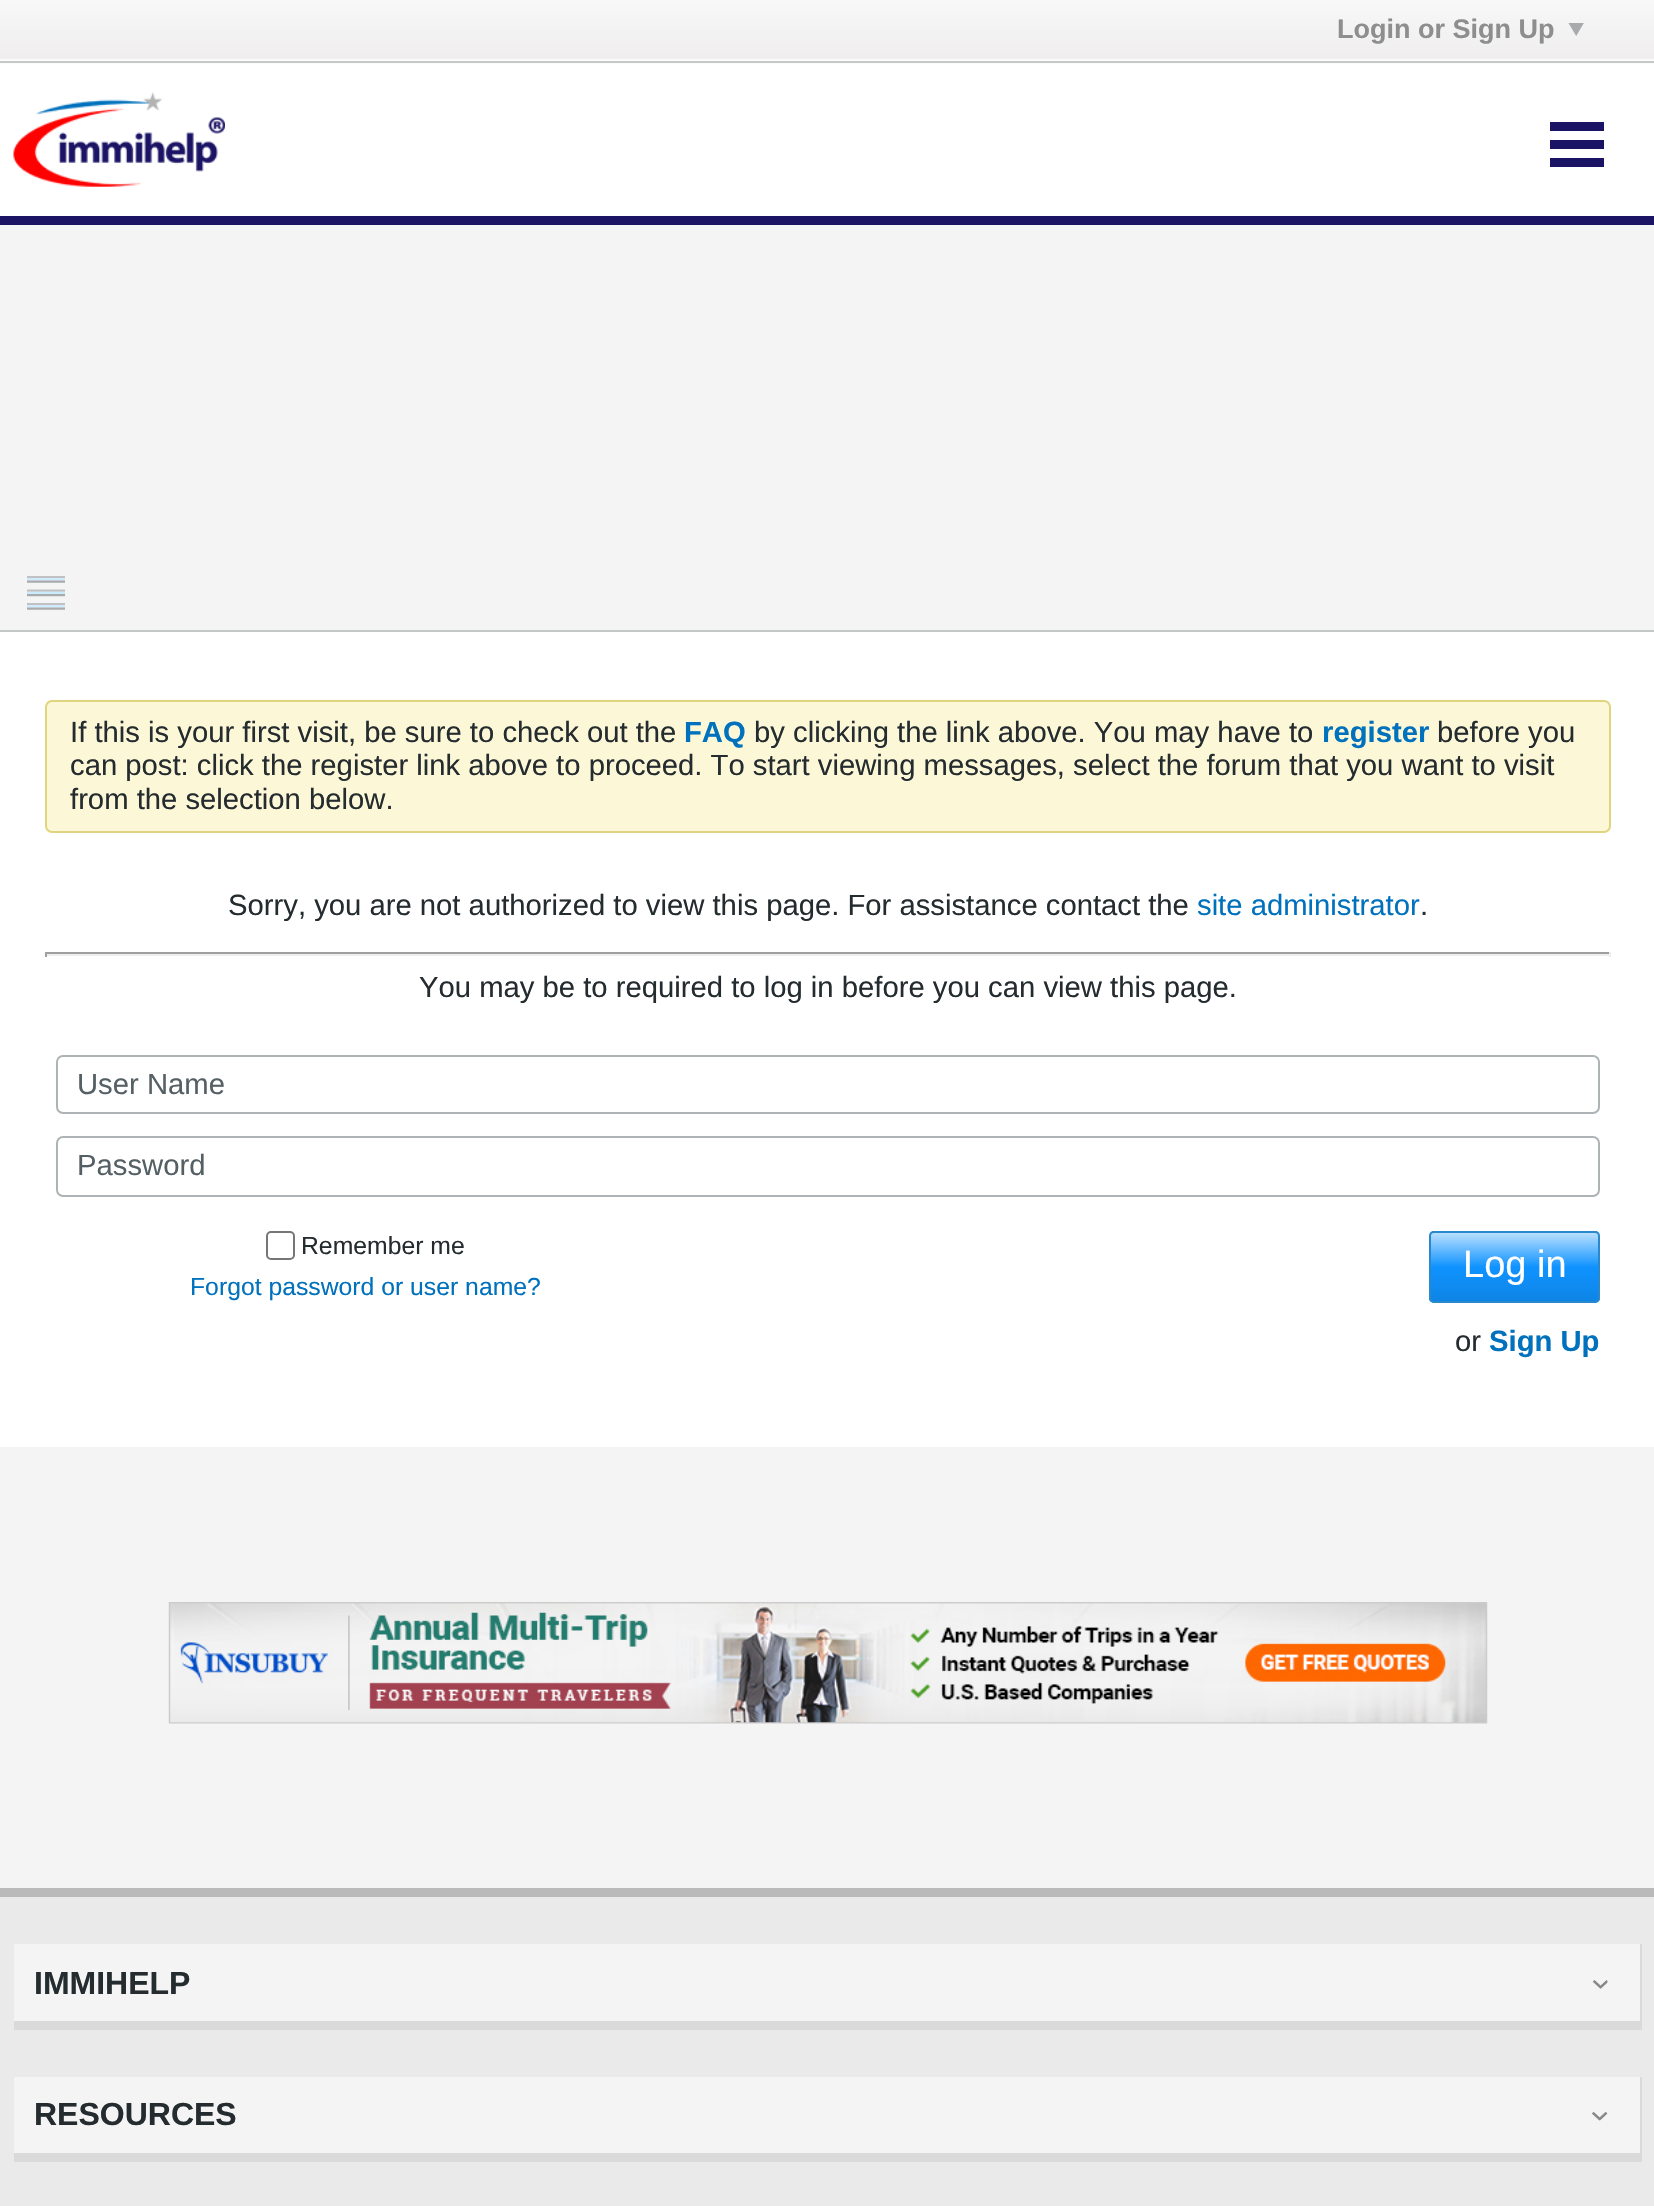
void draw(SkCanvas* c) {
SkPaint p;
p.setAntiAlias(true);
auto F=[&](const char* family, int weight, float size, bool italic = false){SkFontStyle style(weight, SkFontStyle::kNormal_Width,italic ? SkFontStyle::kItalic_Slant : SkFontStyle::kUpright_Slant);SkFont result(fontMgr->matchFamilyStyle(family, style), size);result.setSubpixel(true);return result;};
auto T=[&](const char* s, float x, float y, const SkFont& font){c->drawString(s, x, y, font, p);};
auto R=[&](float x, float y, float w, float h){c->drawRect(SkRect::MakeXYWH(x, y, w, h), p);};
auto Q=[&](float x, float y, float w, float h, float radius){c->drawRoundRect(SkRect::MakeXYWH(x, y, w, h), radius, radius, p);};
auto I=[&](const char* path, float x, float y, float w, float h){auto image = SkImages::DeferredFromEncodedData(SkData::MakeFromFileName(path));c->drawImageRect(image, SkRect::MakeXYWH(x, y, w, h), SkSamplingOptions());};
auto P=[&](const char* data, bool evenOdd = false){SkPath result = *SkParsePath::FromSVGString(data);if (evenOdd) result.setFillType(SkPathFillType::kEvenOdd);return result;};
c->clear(0xfff4f4f4);
{
const SkColor colors[] = {0xfff8f8f8,0xffefedee};
const float stops[] = {0,1};
const SkPoint ends[] = {{828,0}, {828,63}};
p.setShader(SkGradientShader::MakeLinear(ends, colors, stops, 2, SkTileMode::kClamp));
p.setAlpha(255);
}
R(0,0,1654,59);
auto f1 = F("Liberation Sans",700,27);
p.setShader(nullptr);
p.setColor(0xff8e8e8e);
T("Login or Sign Up",1337,38,f1);
I("1.png",1568,23,16,13);
p.setColor(0xfffafafa);
R(0,59,1654,5);
p.setColor(0xffc7c8c9);
R(0,61,1654,2);
p.setColor(0xffffffff);
R(0,64,1654,152);
p.setColor(0xff1b1464);
R(0,216,1654,9);
I("2.png",13,92,212,95);
R(1550,122,54,9);
R(1550,140,54,9);
R(1550,158,54,9);
p.setColor(0xffc4c7c8);
R(0,630,1654,2);
I("3.png",27,576,38,34);
p.setColor(0xffffffff);
R(0,632,1654,815);
p.setColor(0xfffcf7d7);
c->drawRoundRect(SkRect::MakeXYWH(46,701,1564,131),6,6,p);
p.setStroke(true);
p.setStrokeWidth(2);
p.setColor(0xffe1d47e);
c->drawRoundRect(SkRect::MakeXYWH(46,701,1564,131),6,6,p);
auto f2 = F("Liberation Sans",400,29.25);
p.setStroke(false);
p.setColor(0xff252c2f);
T("If this is your first visit, be sure to check out the",70,742,f2);
auto f3 = F("Liberation Sans",700,29.25);
p.setColor(0xff0071bc);
T("FAQ",684,742,f3);
p.setColor(0xff252c2f);
T("by clicking the link above. You may have to",754,742,f2);
p.setColor(0xff0071bc);
T("register",1322,742,f3);
p.setColor(0xff252c2f);
T("before you",1437,742,f2);
T("can post: click the register link above to proceed. To start viewing messages, select the forum that you want to visit",70,775,f2);
T("from the selection below.",70,809,f2);
T("Sorry, you are not authorized to view this page. For assistance contact the",228,915,f2);
p.setColor(0xff0071bc);
T("site administrator",1197,915,f2);
p.setColor(0xff252c2f);
T(".",1420,915,f2);
p.setColor(0xff9f9f9f);
R(45,952,1566,2);
p.setColor(0xffeeeeee);
R(1609,952,2,5);
R(45,954,1566,2);
p.setColor(0xff9f9f9f);
R(45,952,2,5);
p.setColor(0xff252c2f);
T("You may be to required to log in before you can view this page.",419,997,f2);
p.setStroke(true);
p.setColor(0xffaeb3b6);
c->drawRoundRect(SkRect::MakeXYWH(57,1056,1542,57),6,6,p);
p.setStroke(false);
p.setColor(0xff556065);
T("User Name",77,1094,f2);
p.setStroke(true);
p.setColor(0xffaeb3b6);
c->drawRoundRect(SkRect::MakeXYWH(57,1137,1542,59),6,6,p);
p.setStroke(false);
p.setColor(0xff556065);
T("Password",77,1175,f2);
p.setStroke(true);
p.setColor(0xff767676);
c->drawRoundRect(SkRect::MakeXYWH(267,1232,27,27),4,4,p);
auto f4 = F("Liberation Sans",400,24.75);
p.setStroke(false);
p.setColor(0xff252c2f);
T("Remember me",301,1254,f4);
p.setColor(0xff0f93ff);
Q(1429,1231,171,72,5);
c->save();
c->clipPath(P("M1434 1231h161c3 0 5 2 5 5v62c0 3-2 5-5 5h-161c-3 0-5-2-5-5v-62c0-3 2-5 5-5z"),true);
{
const SkColor colors[] = {0x1a000000,0x00000000,0x00ffffff,0xb3ffffff};
const float stops[] = {0,.5,.5,1};
const SkPoint ends[] = {{1514,1301}, {1514,1233}};
p.setShader(SkGradientShader::MakeLinear(ends, colors, stops, 4, SkTileMode::kClamp));
p.setAlpha(255);
}
R(1429,1233,171,68);
c->restore();
p.setStroke(true);
p.setShader(nullptr);
p.setColor(0xff2989cc);
c->drawRoundRect(SkRect::MakeXYWH(1430,1232,169,70),4,4,p);
auto f5 = F("Liberation Sans",400,38);
p.setStroke(false);
p.setColor(0xffffffff);
T("Log in",1463,1277,f5);
p.setColor(0xff0071bc);
T("Forgot password or user name?",190,1295,f4);
p.setColor(0xff252c2f);
T("or",1455,1351,f2);
p.setColor(0xff0071bc);
T("Sign Up",1489,1351,f3);
I("4.png",168,1602,1320,122);
p.setColor(0xffeaeaea);
R(0,1897,1654,309);
p.setColor(0xffbababa);
R(0,1888,1654,9);
p.setColor(0xffdadada);
R(1640,1944,2,86);
p.setColor(0xfff4f4f4);
R(14,1944,1626,77);
p.setColor(0xffdadada);
R(14,2021,1626,9);
auto f6 = F("Liberation Sans",700,32);
p.setColor(0xff252c2f);
T("IMMIHELP",34,1994,f6);
I("5.png",1592,1980,16,9);
p.setColor(0xffdadada);
R(1640,2077,2,85);
p.setColor(0xfff4f4f4);
R(14,2077,1626,76);
p.setColor(0xffdadada);
R(14,2153,1626,9);
p.setColor(0xff252c2f);
T("RESOURCES",34,2125,f6);
I("6.png",1592,2112,16,9);
}
